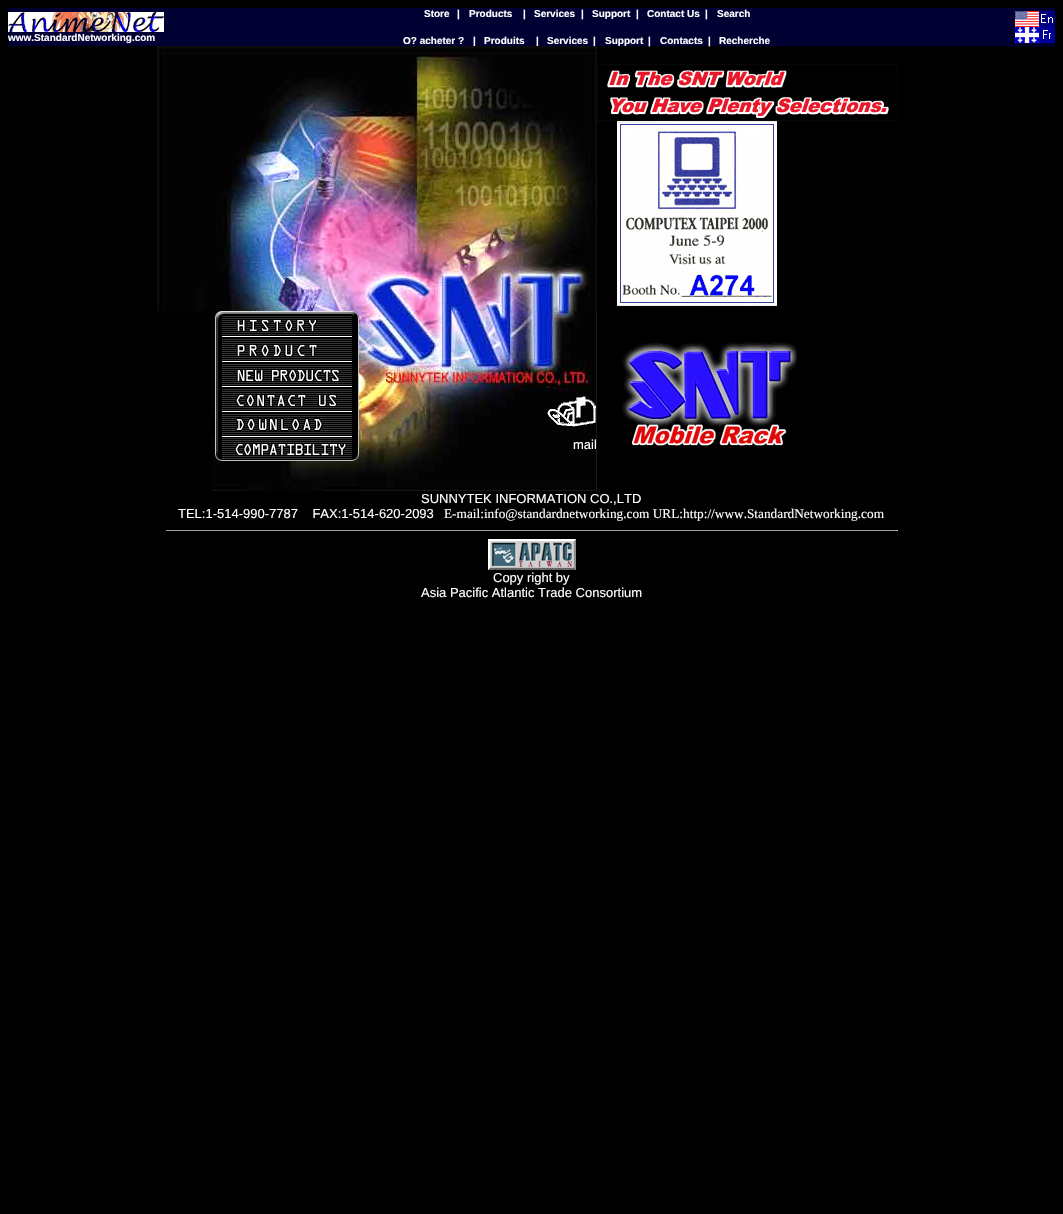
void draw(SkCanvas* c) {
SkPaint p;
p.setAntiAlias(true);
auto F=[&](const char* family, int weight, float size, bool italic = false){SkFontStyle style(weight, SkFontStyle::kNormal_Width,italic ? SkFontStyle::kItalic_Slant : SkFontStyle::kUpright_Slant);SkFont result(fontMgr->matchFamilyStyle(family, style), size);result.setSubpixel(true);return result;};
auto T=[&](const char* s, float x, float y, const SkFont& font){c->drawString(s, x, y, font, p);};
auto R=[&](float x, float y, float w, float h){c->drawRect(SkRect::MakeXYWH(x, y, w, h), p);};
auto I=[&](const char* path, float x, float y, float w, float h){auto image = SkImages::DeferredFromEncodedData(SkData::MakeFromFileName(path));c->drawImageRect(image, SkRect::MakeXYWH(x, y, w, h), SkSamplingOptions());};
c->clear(0xff000000);
p.setColor(0xff000033);
R(8,8,1047,38);
I("1.png",8,12,156,20);
auto f1 = F("Liberation Sans",700,10);
p.setColor(0xffffffff);
T("www.StandardNetworking.com",8,41,f1);
T("Store",424,17,f1);
T("|",457,17,f1);
T("Products",469,17,f1);
T("|",523,17,f1);
T("Services",534,17,f1);
T("|",581,17,f1);
T("Support",592,17,f1);
T("|",636,17,f1);
T("Contact Us",647,17,f1);
T("|",705,17,f1);
T("Search",717,17,f1);
T("O? acheter ?",403,44,f1);
T("|",473,44,f1);
T("Produits",484,44,f1);
T("|",536,44,f1);
T("Services",547,44,f1);
T("|",593,44,f1);
T("Support",605,44,f1);
T("|",648,44,f1);
T("Contacts",660,44,f1);
T("|",708,44,f1);
T("Recherche",719,44,f1);
I("2.png",1015,11,40,16);
I("3.png",1015,27,40,16);
I("4.png",157,46,440,265);
I("5.png",212,311,150,25);
I("6.png",212,336,150,25);
I("7.png",212,361,150,25);
I("8.png",212,386,150,25);
I("9.png",215,411,147,25);
I("10.png",212,436,150,25);
I("11.png",212,461,150,30);
I("12.png",362,311,235,180);
I("13.png",547,387,49,40);
auto f2 = F("Liberation Sans",400,13);
T("mail",573,449,f2);
I("14.png",597,64,301,57);
I("15.png",617,121,160,185);
I("16.png",622,342,175,104);
T("SUNNYTEK INFORMATION CO.,LTD",421,503,f2);
T("TEL:1-514-990-7787    FAX:1-514-620-2093",178,518,f2);
auto f3 = F("Liberation Serif",400,13.3);
T("E-mail:info@standardnetworking.com URL:http://www.StandardNetworking.com",444,518,f3);
p.setColor(0xff9f9f9f);
R(166,530,732,1);
p.setColor(0xffeeeeee);
R(897,530,1,1);
I("17.png",488,539,88,31);
p.setColor(0xffffffff);
T("Copy right by",493,582,f2);
T("Asia Pacific Atlantic Trade Consortium",421,597,f2);
}
